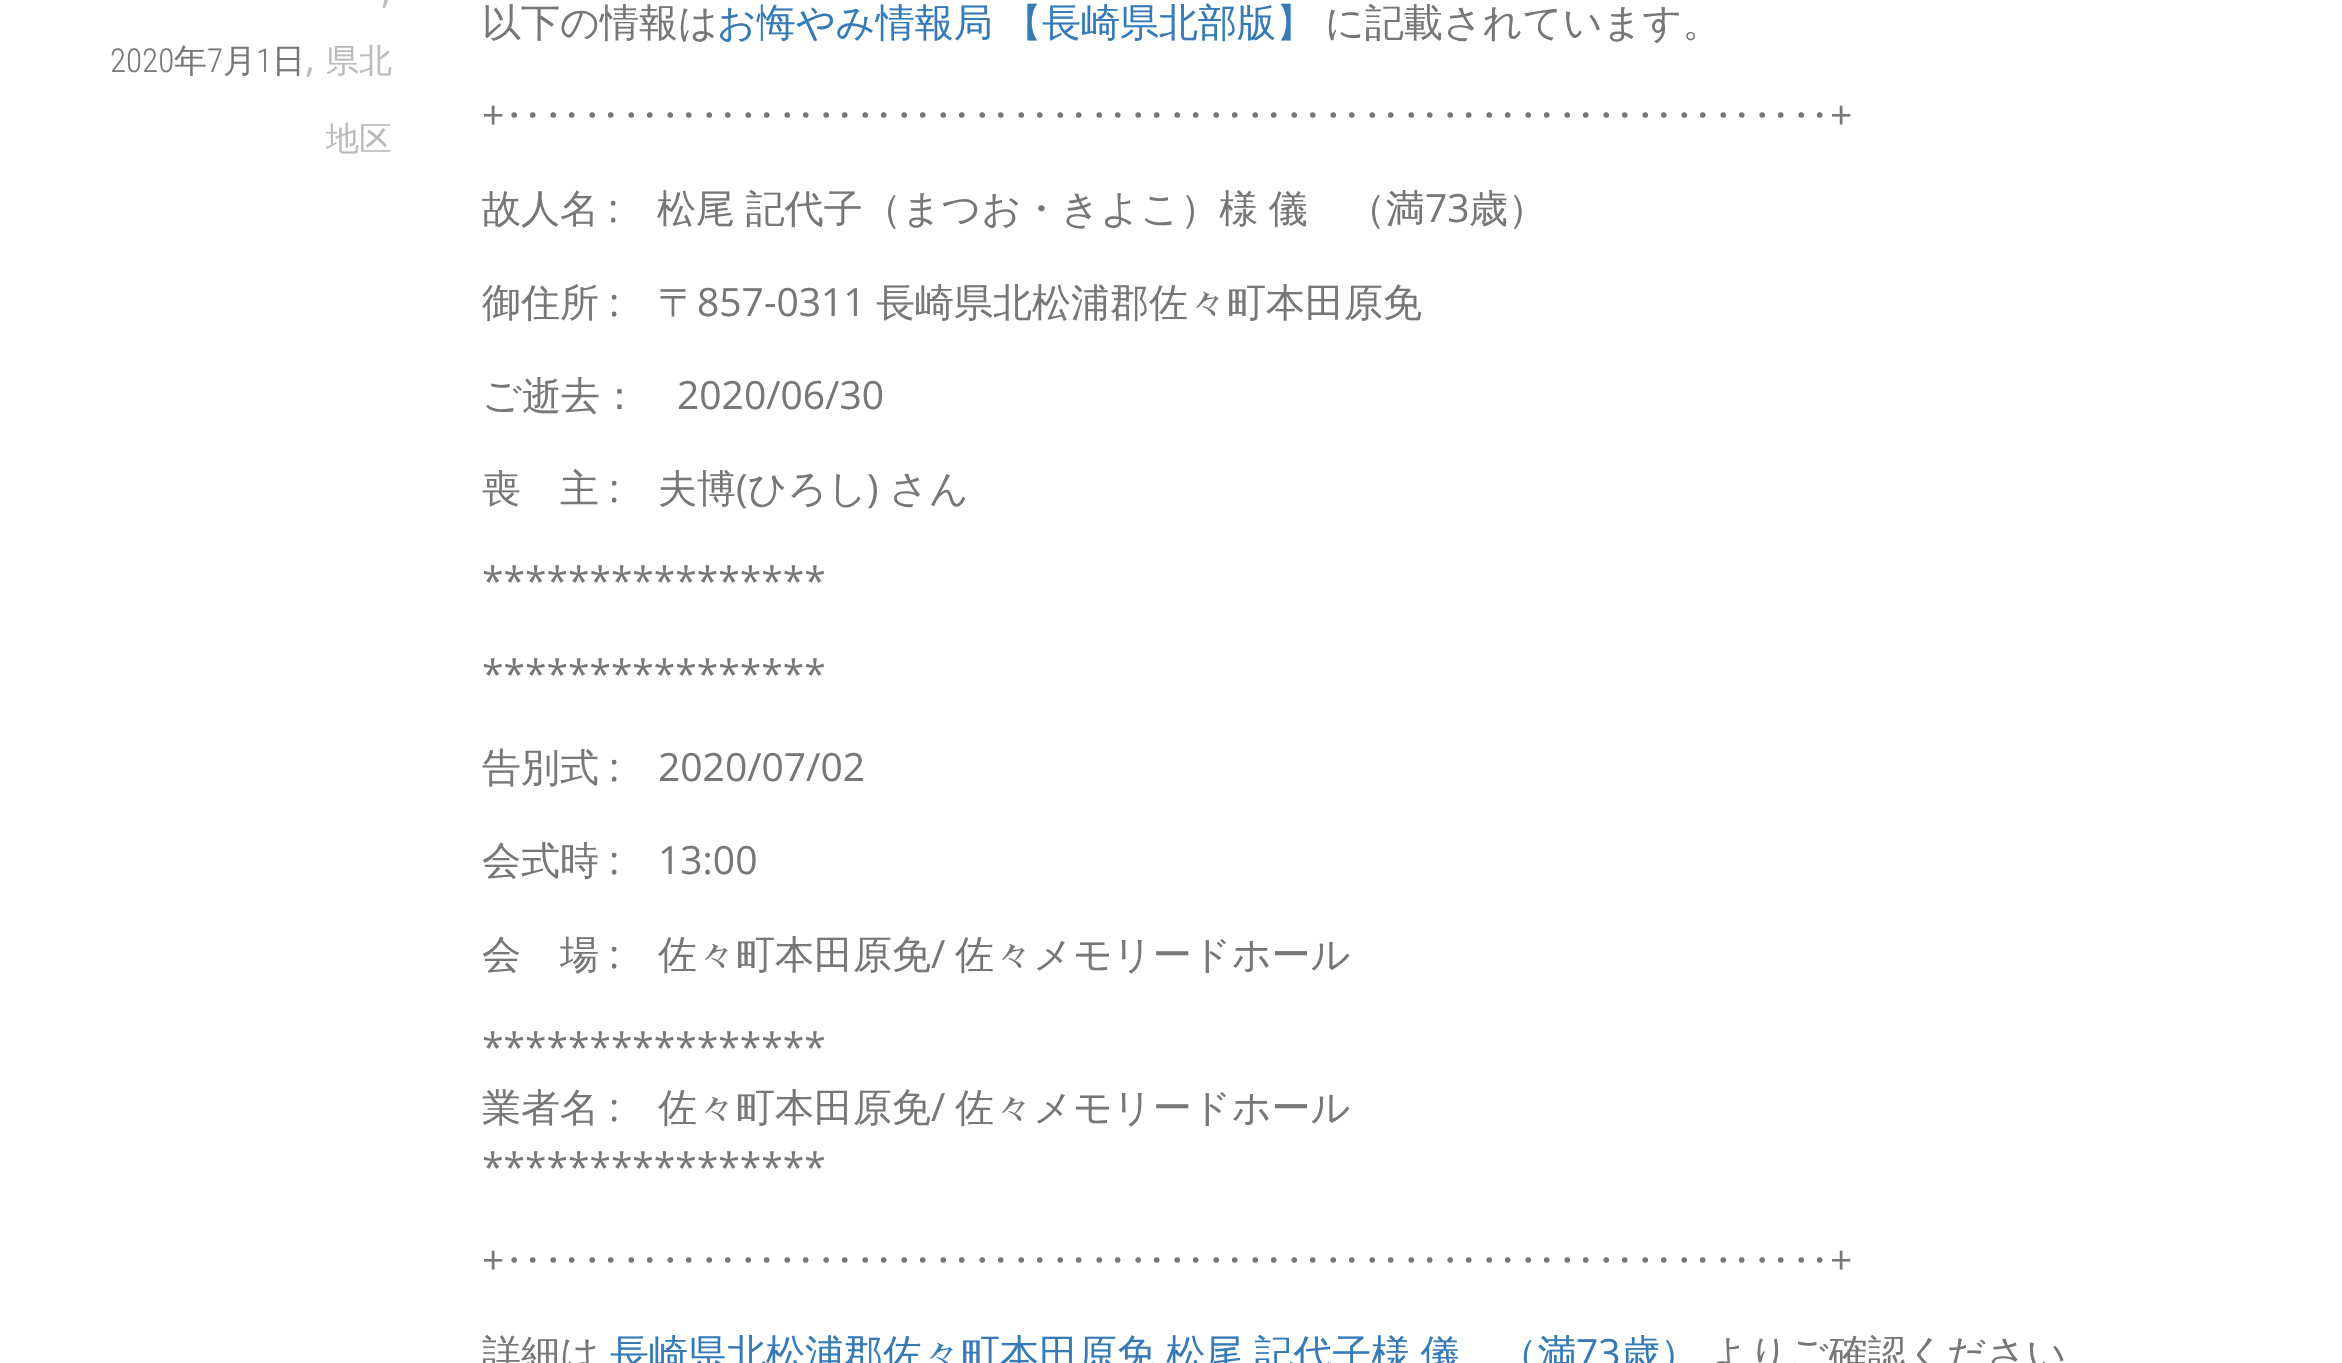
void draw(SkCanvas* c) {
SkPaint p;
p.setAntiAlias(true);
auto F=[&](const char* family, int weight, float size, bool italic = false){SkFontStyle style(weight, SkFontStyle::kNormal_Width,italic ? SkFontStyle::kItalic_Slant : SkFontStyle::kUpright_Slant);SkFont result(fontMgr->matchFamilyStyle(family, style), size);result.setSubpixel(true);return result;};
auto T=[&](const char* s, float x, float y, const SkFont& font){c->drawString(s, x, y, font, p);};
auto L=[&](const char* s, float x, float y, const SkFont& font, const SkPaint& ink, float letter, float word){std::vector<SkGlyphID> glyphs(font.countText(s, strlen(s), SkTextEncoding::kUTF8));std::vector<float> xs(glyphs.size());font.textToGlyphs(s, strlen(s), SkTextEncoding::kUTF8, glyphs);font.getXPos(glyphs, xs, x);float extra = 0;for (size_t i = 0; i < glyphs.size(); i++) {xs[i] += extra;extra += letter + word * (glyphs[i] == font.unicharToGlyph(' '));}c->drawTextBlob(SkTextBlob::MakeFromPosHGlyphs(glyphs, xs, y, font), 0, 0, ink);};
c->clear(0xffffffff);
auto f1 = F("Open Sans",400,39);
p.setColor(0xffbbbbbb);
T(",",381,3,f1);
auto f2 = F("Roboto Condensed",300,33);
p.setColor(0xff777777);
T("2020",110,72,f2);
auto f3 = F("WenQuanYi Zen Hei",500,33);
T("年",174,72,f3);
T("7",207,72,f2);
T("月",223,72,f3);
T("1",256,72,f2);
T("日",272,72,f3);
p.setColor(0xffbbbbbb);
T(",",305,72,f1);
T("県北",326,72,f3);
T("地区",326,150,f3);
auto f4 = F("WenQuanYi Zen Hei",500,39);
p.setColor(0xff777777);
T("以下の情報は",482,36,f4);
p.setColor(0xff367bb7);
L("お悔やみ情報局 【長崎県北部版】",717,36,f4,p,0,-1.5);
p.setColor(0xff777777);
T("に記載されています。",1325,36,f4);
T("+",482,129,f1);
T("‥‥‥‥‥‥‥‥‥‥‥‥‥‥‥‥‥‥‥‥‥‥‥‥‥‥‥‥‥‥‥‥‥‥",504,129,f4);
T("+",1830,129,f1);
T("故人名",482,222,f4);
T(":",608,222,f1);
L("松尾 記代子（まつお・きよこ）様 儀　（満",657,222,f4,p,0,-1);
T("73",1425,222,f1);
T("歳）",1469,222,f4);
T("御住所",482,316,f4);
T(":",609,316,f1);
T("〒",658,316,f4);
T("857-0311",697,316,f1);
T("長崎県北松浦郡佐々町本田原免",876,316,f4);
T("ご逝去：",482,409,f4);
T("2020/06/30",677,409,f1);
T("喪　主",482,502,f4);
T("夫博 ひろし",658,502,f4);
T("さん",889,502,f4);
T(":",609,502,f1);
T("(",736,502,f1);
T(")",867,502,f1);
T("****************",482,595,f1);
T("****************",482,688,f1);
T("告別式",482,781,f4);
T(":",609,781,f1);
T("2020/07/02",658,781,f1);
T("会式時",482,874,f4);
T(":",609,874,f1);
T("13:00",658,874,f1);
T("会　場",482,968,f4);
T(":",609,968,f1);
T("佐々町本田原免",658,968,f4);
T("/",931,968,f1);
T("佐々メモリードホール",955,968,f4);
T("****************",482,1061,f1);
T("業者名",482,1121,f4);
T(":",609,1121,f1);
T("佐々町本田原免",658,1121,f4);
T("/",931,1121,f1);
T("佐々メモリードホール",955,1121,f4);
T("****************",482,1181,f1);
T("+",482,1274,f1);
T("‥‥‥‥‥‥‥‥‥‥‥‥‥‥‥‥‥‥‥‥‥‥‥‥‥‥‥‥‥‥‥‥‥‥",504,1274,f4);
T("+",1830,1274,f1);
T("詳細は",482,1367,f4);
p.setColor(0xff367bb7);
L("長崎県北松浦郡佐々町本田原免 松尾 記代子様 儀　（満",610,1367,f4,p,0,-1.5);
T("73",1576,1367,f1);
T("歳）",1621,1367,f4);
p.setColor(0xff777777);
T("よりご確認ください",1709,1367,f4);
}
